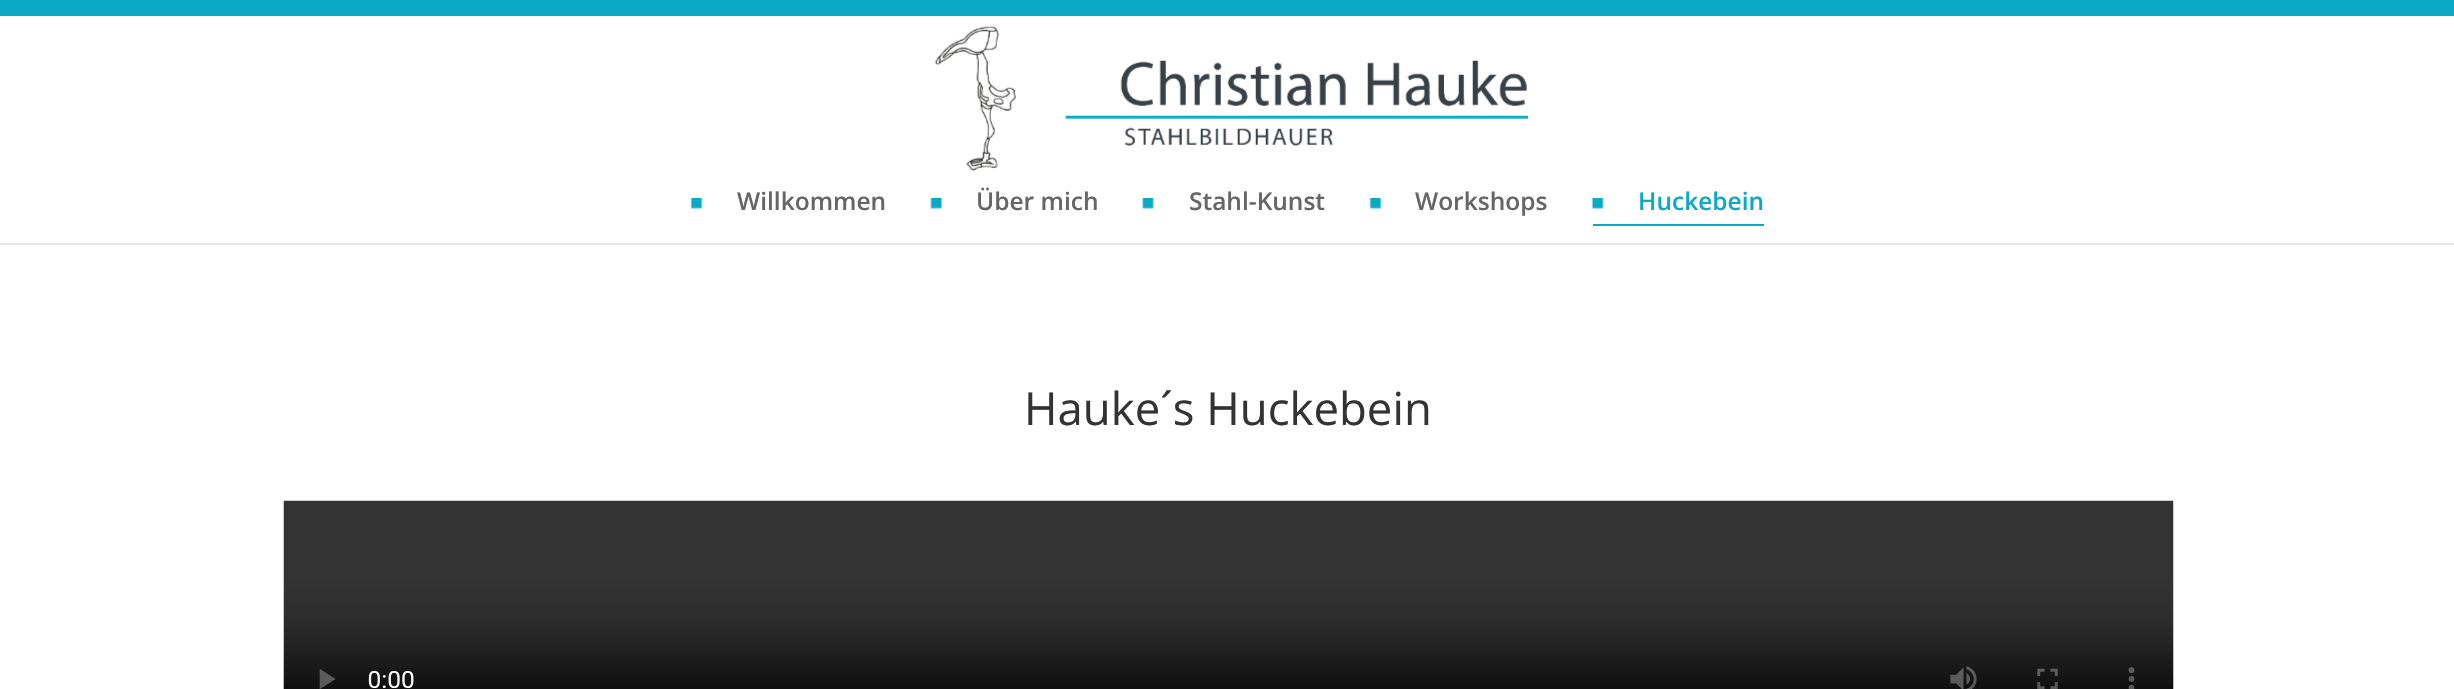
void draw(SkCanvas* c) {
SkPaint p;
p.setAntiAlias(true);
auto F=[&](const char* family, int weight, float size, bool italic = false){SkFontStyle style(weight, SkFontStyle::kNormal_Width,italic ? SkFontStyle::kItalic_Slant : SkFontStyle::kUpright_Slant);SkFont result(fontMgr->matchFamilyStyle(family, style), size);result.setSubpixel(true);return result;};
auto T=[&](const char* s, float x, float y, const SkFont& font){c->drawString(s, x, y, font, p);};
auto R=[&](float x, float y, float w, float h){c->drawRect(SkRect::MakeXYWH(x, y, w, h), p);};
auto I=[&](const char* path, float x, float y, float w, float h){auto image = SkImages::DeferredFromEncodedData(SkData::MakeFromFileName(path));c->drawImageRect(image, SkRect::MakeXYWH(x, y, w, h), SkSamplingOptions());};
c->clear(0xffffffff);
p.setColor(0xff0ca9c5);
R(0,0,2454,16);
p.setColor(0xffe6e6e6);
R(0,243,2454,2);
I("1.png",934,25,594,146);
I("2.png",690,198,13,11);
auto f1 = F("Open Sans",600,24.5);
p.setColor(0xff666666);
T("Willkommen",737,210,f1);
I("3.png",930,198,12,11);
T("Über mich",976,210,f1);
I("4.png",1142,198,12,11);
T("Stahl-Kunst",1189,210,f1);
I("2.png",1369,198,13,11);
T("Workshops",1415,210,f1);
I("5.png",1592,198,12,11);
p.setColor(0xff0ca9c5);
T("Huckebein",1638,210,f1);
R(1593,224,171,2);
auto f2 = F("Open Sans",400,45.5);
p.setColor(0xff333333);
T("Hauke´s Huckebein",1024,425,f2);
I("6.png",283,500,1891,189);
}
